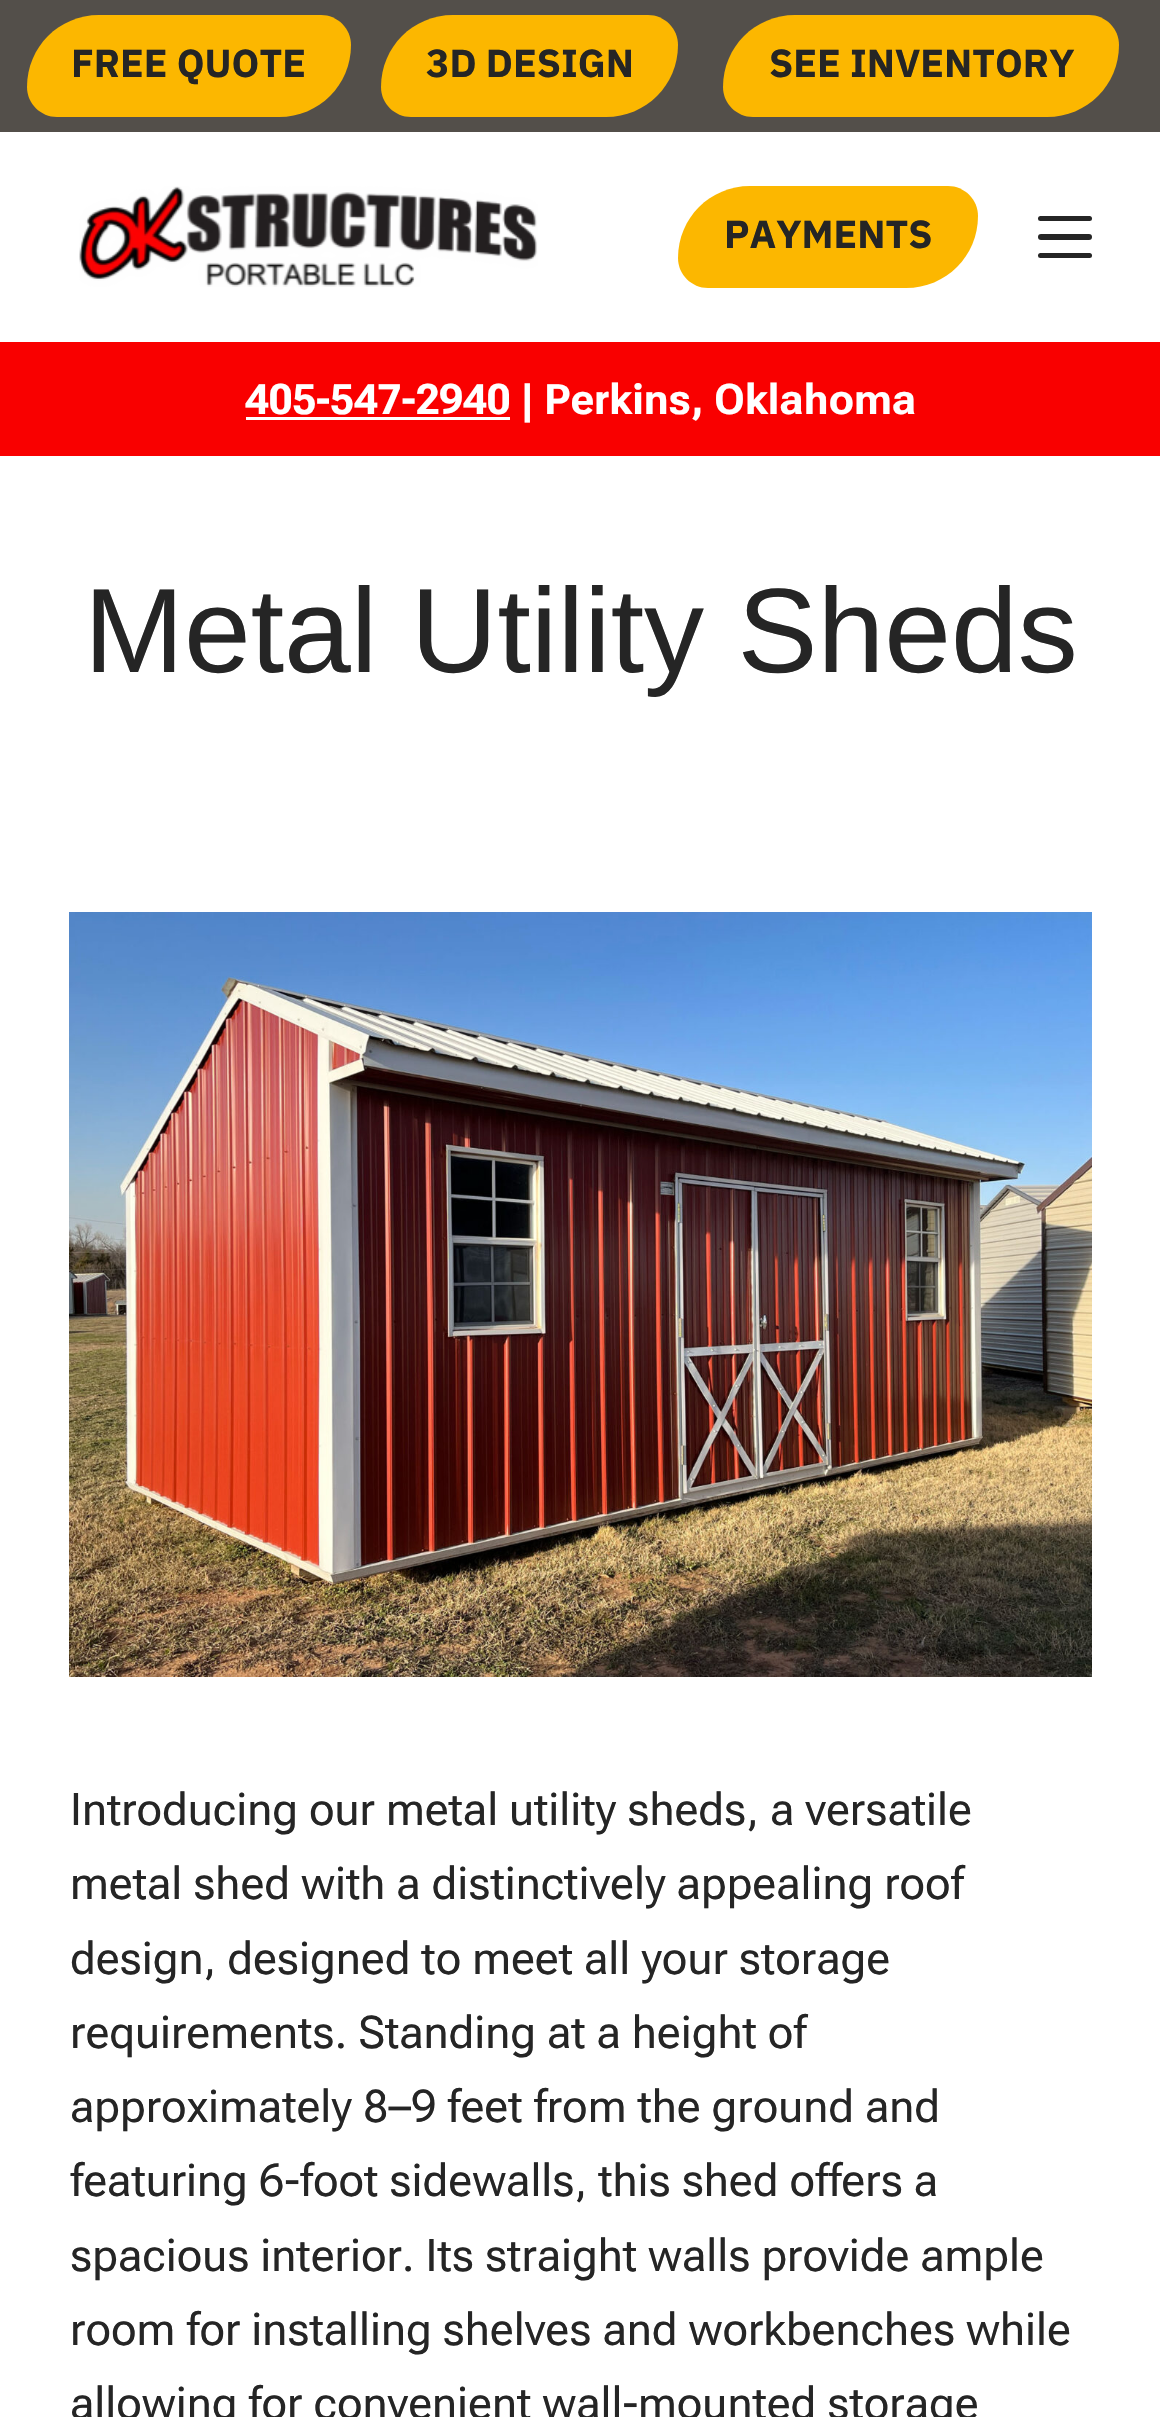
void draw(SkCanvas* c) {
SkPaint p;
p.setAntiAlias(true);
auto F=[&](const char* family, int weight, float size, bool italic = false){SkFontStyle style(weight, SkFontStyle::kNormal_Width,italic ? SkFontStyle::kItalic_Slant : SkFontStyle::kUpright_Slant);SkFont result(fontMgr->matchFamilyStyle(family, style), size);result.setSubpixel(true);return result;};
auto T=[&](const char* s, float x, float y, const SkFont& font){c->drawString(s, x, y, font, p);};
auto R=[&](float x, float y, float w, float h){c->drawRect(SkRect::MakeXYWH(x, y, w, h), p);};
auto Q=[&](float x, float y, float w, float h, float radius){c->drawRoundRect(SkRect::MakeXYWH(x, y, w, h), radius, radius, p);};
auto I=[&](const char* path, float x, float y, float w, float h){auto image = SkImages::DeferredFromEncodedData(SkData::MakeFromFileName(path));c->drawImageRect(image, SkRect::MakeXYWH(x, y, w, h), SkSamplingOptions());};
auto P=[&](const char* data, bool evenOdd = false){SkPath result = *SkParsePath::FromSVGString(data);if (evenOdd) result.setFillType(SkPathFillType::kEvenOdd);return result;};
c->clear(0xffffffff);
p.setColor(0xff534f4a);
R(0,0,1160,132);
p.setColor(0xfffcb700);
c->drawPath(P("M99 15h222c16.5 0 30 13.5 30 30c0 40-32 72-72 72h-222c-16.5 0-30-13.5-30-30c0-40 32-72 72-72z"),p);
auto f1 = F("IBM Plex Sans",700,39);
p.setColor(0xff252525);
T("FREE QUOTE",71,77,f1);
p.setColor(0xfffcb700);
c->drawPath(P("M453 15h195c16.5 0 30 13.5 30 30c0 40-32 72-72 72h-195c-16.5 0-30-13.5-30-30c0-40 32-72 72-72z"),p);
p.setColor(0xff252525);
T("3D DESIGN",426,77,f1);
p.setColor(0xfffcb700);
c->drawPath(P("M795 15h294c16.5 0 30 13.5 30 30c0 40-32 72-72 72h-294c-16.5 0-30-13.5-30-30c0-40 32-72 72-72z"),p);
p.setColor(0xff252525);
T("SEE INVENTORY",769,77,f1);
I("1.png",79,186,459,101);
p.setColor(0xfffcb700);
c->drawPath(P("M750 186h198c16.5 0 30 13.5 30 30c0 40-32 72-72 72h-198c-16.5 0-30-13.5-30-30c0-40 32-72 72-72z"),p);
p.setColor(0xff252525);
T("PAYMENTS",724,248,f1);
Q(1038,216,54,5,2.5);
Q(1038,234,54,6,3);
Q(1038,253,54,5,2.5);
p.setColor(0xfff90000);
R(0,342,1160,114);
p.setColor(0xffffffff);
R(246,417,264,3);
auto f2 = F("Roboto Flex",700,42);
T("405-547-2940 | Perkins, Oklahoma",245,414,f2);
auto f3 = F("Liberation Sans",400,120);
p.setColor(0xff252525);
T("Metal Utility Sheds",84,672,f3);
I("2.png",69,912,1023,765);
auto f4 = F("Roboto Flex",400,45);
T("Introducing our metal utility sheds, a versatile",70,1825,f4);
T("metal shed with a distinctively appealing roof",70,1899,f4);
T("design, designed to meet all your storage",70,1974,f4);
T("requirements. Standing at a height of",70,2048,f4);
T("approximately 8–9 feet from the ground and",70,2122,f4);
T("featuring 6-foot sidewalls, this shed offers a",70,2196,f4);
T("spacious interior. Its straight walls provide ample",70,2271,f4);
T("room for installing shelves and workbenches while",70,2345,f4);
T("allowing for convenient wall-mounted storage",70,2419,f4);
}
